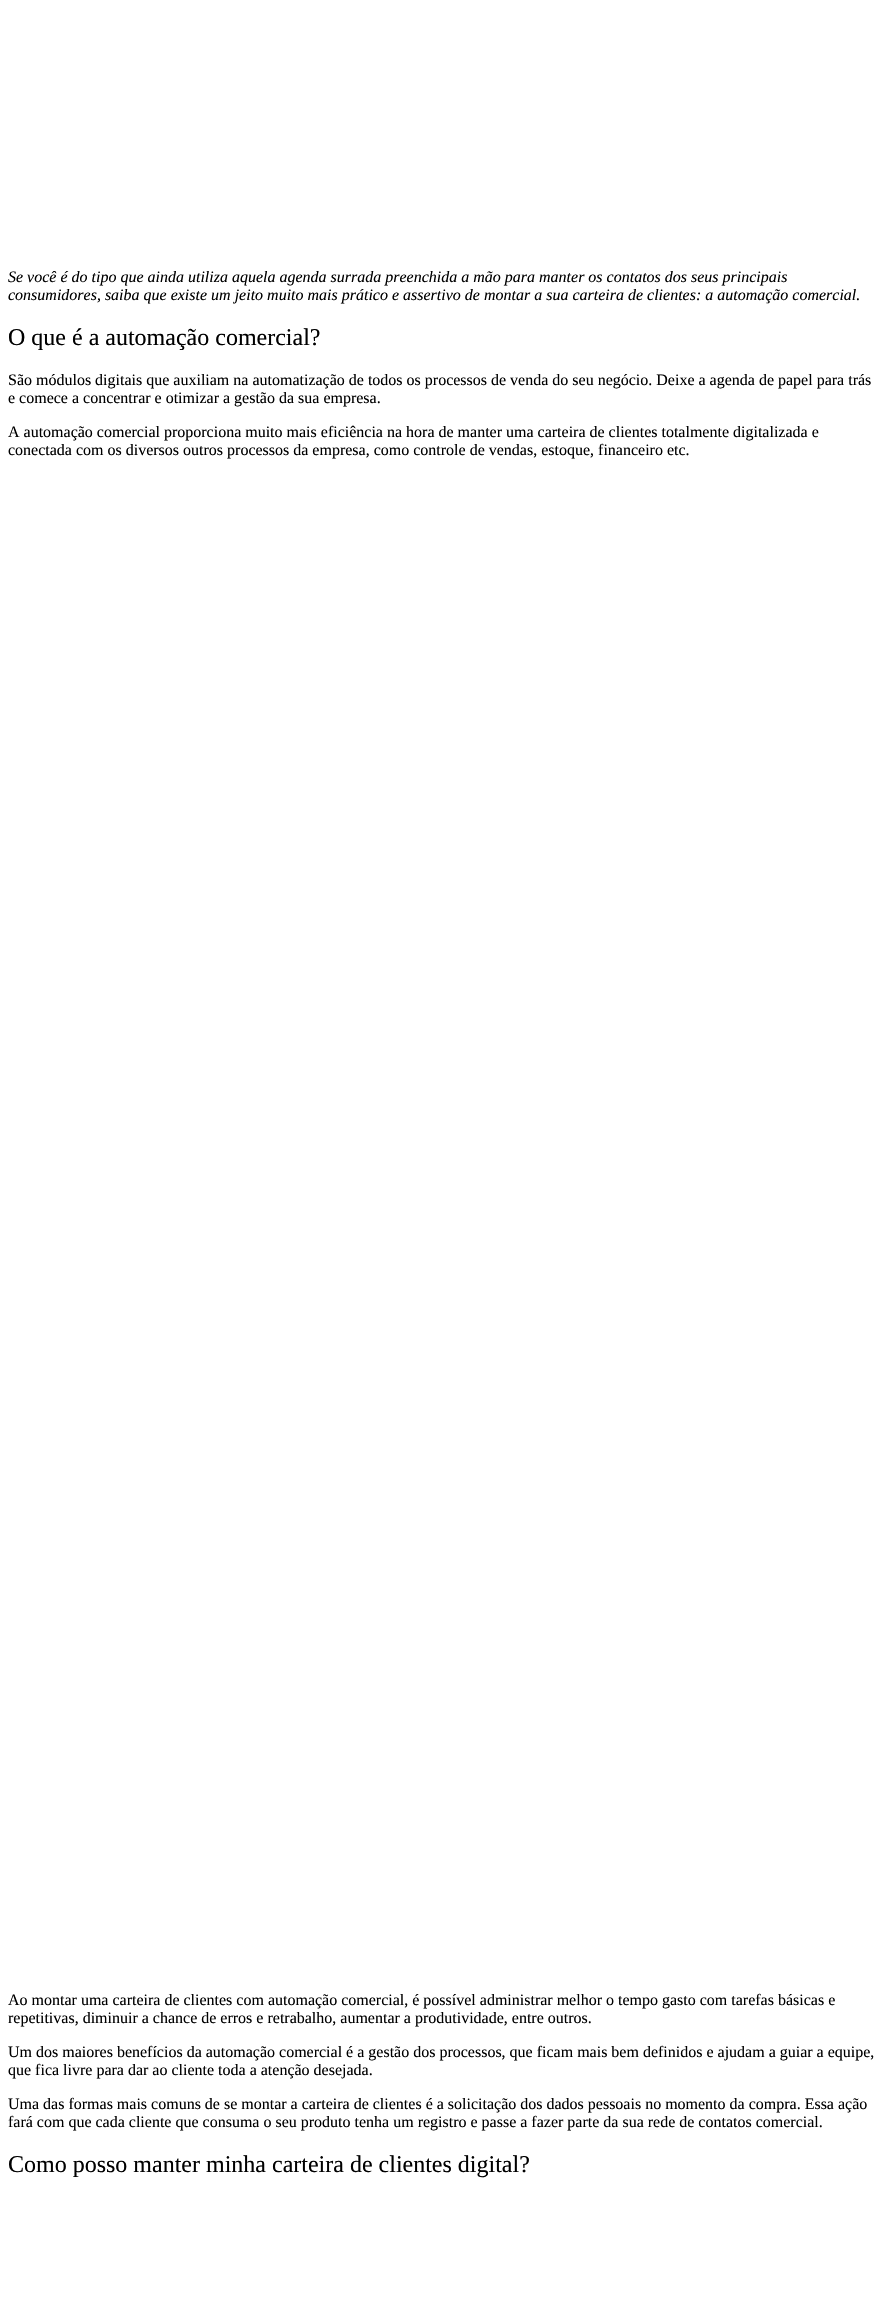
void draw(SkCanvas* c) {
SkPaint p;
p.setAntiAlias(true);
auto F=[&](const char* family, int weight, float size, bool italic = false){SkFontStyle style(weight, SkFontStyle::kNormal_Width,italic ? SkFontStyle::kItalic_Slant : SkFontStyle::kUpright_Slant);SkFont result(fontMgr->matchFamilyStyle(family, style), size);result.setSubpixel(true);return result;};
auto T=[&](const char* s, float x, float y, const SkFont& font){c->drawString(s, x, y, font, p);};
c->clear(0xffffffff);
auto f1 = F("Liberation Serif",400,16,true);
p.setColor(0xff000000);
T("Se você é do tipo que ainda utiliza aquela agenda surrada preenchida a mão para manter os contatos dos seus principais",8,282,f1);
T("consumidores, saiba que existe um jeito muito mais prático e assertivo de montar a sua carteira de clientes: a automação comercial.",8,300,f1);
auto f2 = F("Liberation Serif",400,24);
T("O que é a automação comercial?",8,345,f2);
auto f3 = F("Liberation Serif",400,16);
T("São módulos digitais que auxiliam na automatização de todos os processos de venda do seu negócio. Deixe a agenda de papel para trás",8,385,f3);
T("e comece a concentrar e otimizar a gestão da sua empresa.",8,403,f3);
T("A automação comercial proporciona muito mais eficiência na hora de manter uma carteira de clientes totalmente digitalizada e",8,437,f3);
T("conectada com os diversos outros processos da empresa, como controle de vendas, estoque, financeiro etc.",8,455,f3);
T("Ao montar uma carteira de clientes com automação comercial, é possível administrar melhor o tempo gasto com tarefas básicas e",8,2005,f3);
T("repetitivas, diminuir a chance de erros e retrabalho, aumentar a produtividade, entre outros.",8,2023,f3);
T("Um dos maiores benefícios da automação comercial é a gestão dos processos, que ficam mais bem definidos e ajudam a guiar a equipe,",8,2057,f3);
T("que fica livre para dar ao cliente toda a atenção desejada.",8,2075,f3);
T("Uma das formas mais comuns de se montar a carteira de clientes é a solicitação dos dados pessoais no momento da compra. Essa ação",8,2109,f3);
T("fará com que cada cliente que consuma o seu produto tenha um registro e passe a fazer parte da sua rede de contatos comercial.",8,2127,f3);
T("Como posso manter minha carteira de clientes digital?",8,2172,f2);
}
